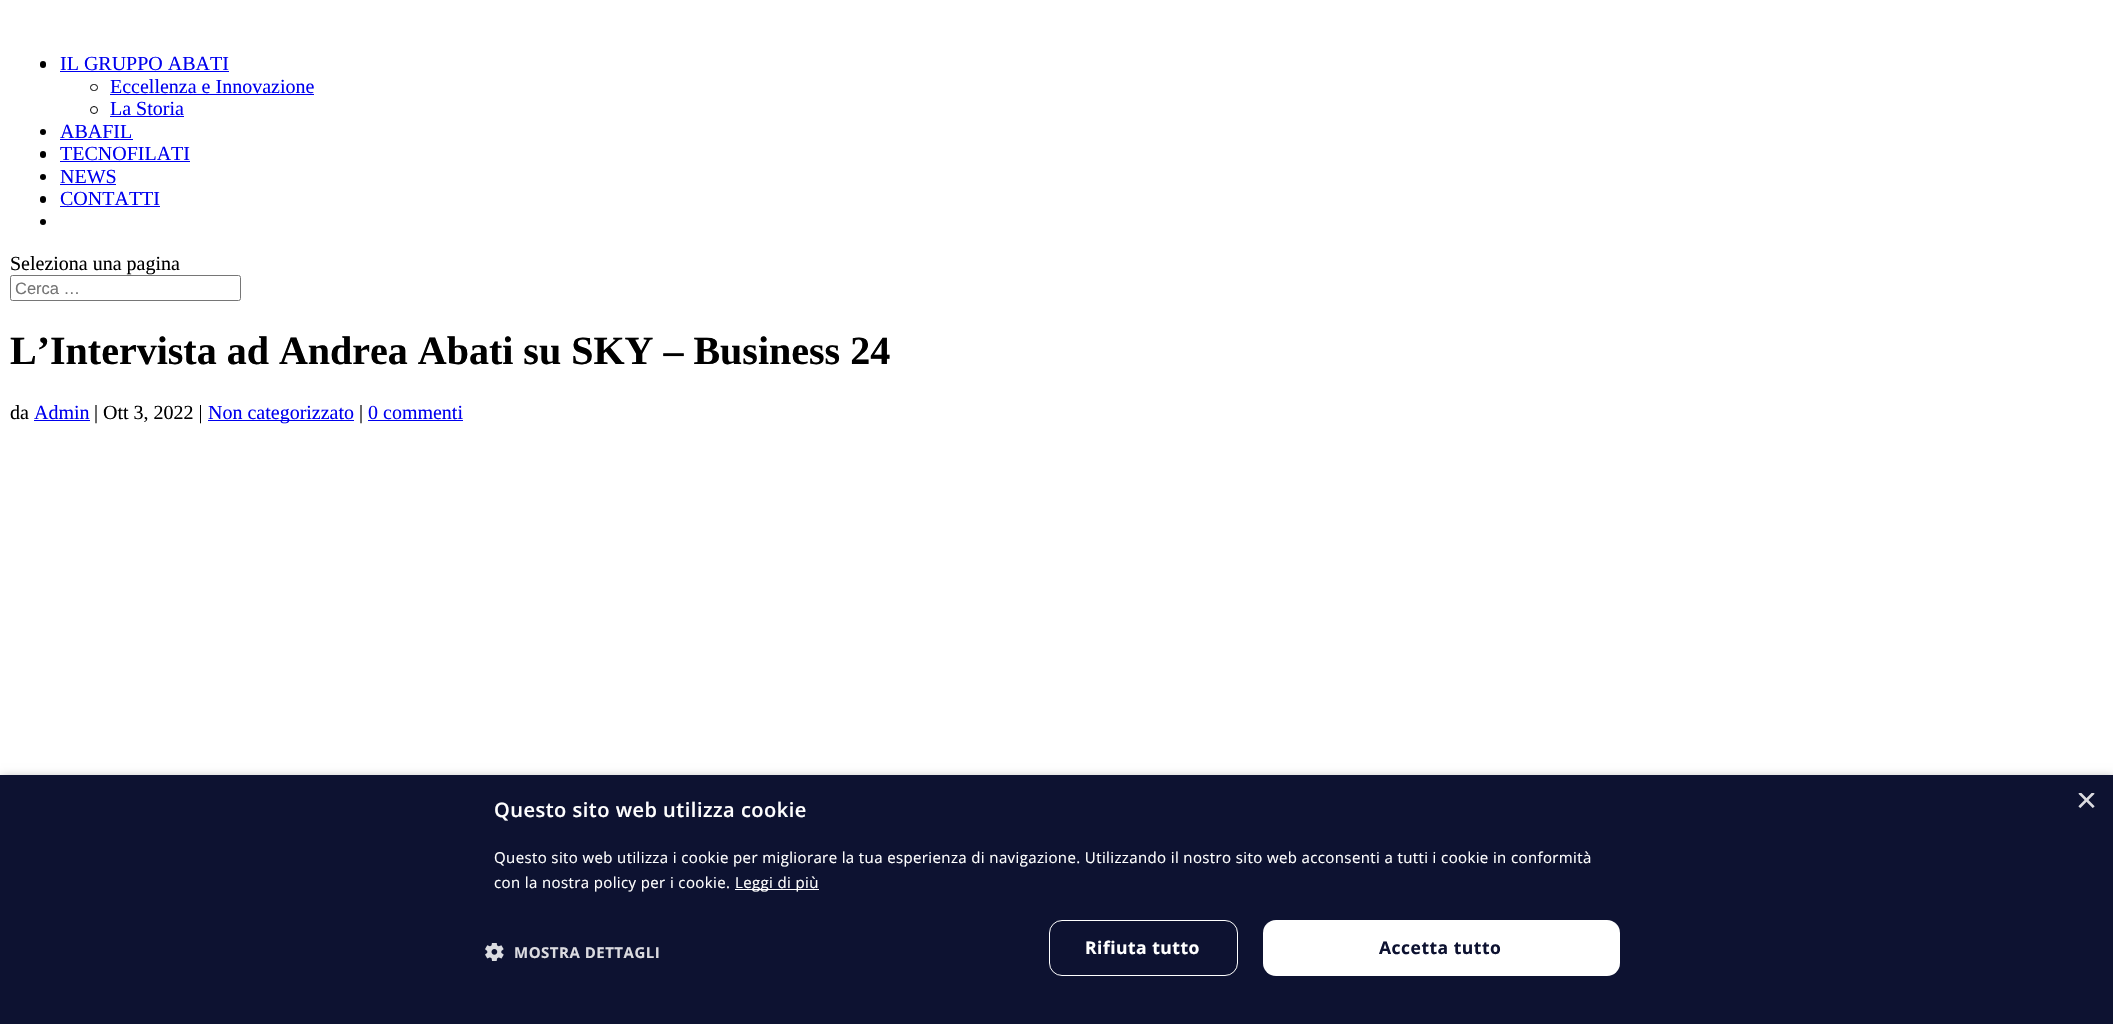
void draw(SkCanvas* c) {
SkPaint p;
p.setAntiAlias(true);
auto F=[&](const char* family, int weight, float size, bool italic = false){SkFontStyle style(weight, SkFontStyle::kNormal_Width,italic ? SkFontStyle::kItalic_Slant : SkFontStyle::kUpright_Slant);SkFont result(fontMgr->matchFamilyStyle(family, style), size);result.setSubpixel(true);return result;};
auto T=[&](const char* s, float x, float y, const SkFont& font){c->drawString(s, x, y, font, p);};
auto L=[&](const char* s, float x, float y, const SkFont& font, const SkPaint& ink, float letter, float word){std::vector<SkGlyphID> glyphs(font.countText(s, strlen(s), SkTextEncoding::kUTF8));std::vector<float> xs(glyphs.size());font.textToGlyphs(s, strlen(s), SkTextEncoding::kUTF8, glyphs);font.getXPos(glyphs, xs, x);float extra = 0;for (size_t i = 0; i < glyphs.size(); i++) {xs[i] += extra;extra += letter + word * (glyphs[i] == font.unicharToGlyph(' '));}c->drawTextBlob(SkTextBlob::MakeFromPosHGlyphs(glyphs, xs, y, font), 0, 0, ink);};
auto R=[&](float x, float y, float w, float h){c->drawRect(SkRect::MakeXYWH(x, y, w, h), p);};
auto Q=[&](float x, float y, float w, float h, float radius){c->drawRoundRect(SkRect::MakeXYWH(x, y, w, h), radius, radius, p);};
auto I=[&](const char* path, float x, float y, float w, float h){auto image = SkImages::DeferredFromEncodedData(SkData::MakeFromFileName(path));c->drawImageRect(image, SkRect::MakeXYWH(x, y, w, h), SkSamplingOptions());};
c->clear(0xffffffff);
p.setColor(0xff000000);
Q(40,61,6,7,3);
auto f1 = F("Liberation Serif",400,20);
p.setColor(0xff0000ee);
T("IL GRUPPO ABATI",60,70,f1);
R(60,71,169,1);
p.setStroke(true);
p.setStrokeWidth(1);
p.setColor(0xff000000);
c->drawRoundRect(SkRect::MakeXYWH(90.5,84.5,7,6),3,3,p);
p.setStroke(false);
p.setColor(0xff0000ee);
T("Eccellenza e Innovazione",110,93,f1);
R(110,94,204,1);
p.setStroke(true);
p.setColor(0xff000000);
c->drawCircle(94,110,3.5,p);
p.setStroke(false);
p.setColor(0xff0000ee);
T("La Storia",110,115,f1);
R(110,116,74,1);
p.setColor(0xff000000);
c->drawCircle(43,132,3,p);
p.setColor(0xff0000ee);
T("ABAFIL",60,138,f1);
R(60,139,73,1);
p.setColor(0xff000000);
Q(40,151,6,7,3);
p.setColor(0xff0000ee);
T("TECNOFILATI",60,160,f1);
R(60,161,130,1);
p.setColor(0xff000000);
c->drawCircle(43,177,3,p);
p.setColor(0xff0000ee);
T("NEWS",60,183,f1);
R(60,184,56,1);
p.setColor(0xff000000);
Q(40,196,6,7,3);
p.setColor(0xff0000ee);
T("CONTATTI",60,205,f1);
R(60,206,100,1);
p.setColor(0xff000000);
c->drawCircle(43,222,3,p);
T("Seleziona una pagina",10,270,f1);
p.setStroke(true);
p.setColor(0xff767676);
c->drawRoundRect(SkRect::MakeXYWH(10.5,275.5,230,25),2,2,p);
auto f2 = F("Liberation Sans",400,16.5);
p.setStroke(false);
p.setColor(0xff757575);
T("Cerca …",15,294,f2);
auto f3 = F("Liberation Serif",700,40);
p.setColor(0xff000000);
T("L’Intervista ad Andrea Abati su SKY – Business 24",10,364,f3);
T("da",10,419,f1);
p.setColor(0xff0000ee);
T("Admin",34,419,f1);
R(34,420,56,1);
p.setColor(0xff000000);
T("| Ott 3, 2022 |",94,419,f1);
p.setColor(0xff0000ee);
R(208,420,146,1);
T("Non categorizzato",208,419,f1);
p.setColor(0xff000000);
T("|",359,419,f1);
p.setColor(0xff0000ee);
T("0 commenti",368,419,f1);
R(368,420,95,1);
p.setColor(0x59000000);
p.setMaskFilter(SkMaskFilter::MakeBlur(kNormal_SkBlurStyle, 5));
c->drawRect(SkRect::MakeXYWH(1,778,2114,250),p);
p.setMaskFilter(nullptr);
p.setColor(0xff0d1231);
R(0,775,2113,249);
auto f4 = F("Open Sans",600,20);
p.setColor(0xffffffff);
L("Questo sito web utilizza cookie",494,817,f4,p,.5,0);
c->save();
c->clipRect(SkRect::MakeXYWH(2076,793,19,18));
auto f5 = F("Liberation Sans",400,36);
p.setColor(0xffdbdbe0);
T("×",2076,812,f5);
c->restore();
auto f6 = F("Open Sans",400,15);
p.setColor(0xffffffff);
L("Questo sito web utilizza i cookie per migliorare la tua esperienza di navigazione. Utilizzando il nostro sito web acconsenti a tutti i cookie in conformità",494,863,f6,p,.38,0);
L("con la nostra policy per i cookie.",494,888,f6,p,.38,0);
R(735,889,84,1);
L("Leggi di più",735,888,f6,p,.38,0);
I("1.png",485,943,19,18);
auto f7 = F("Open Sans",700,15);
p.setColor(0xffdbdbe0);
L("MOSTRA DETTAGLI",514,958,f7,p,.5,0);
p.setStroke(true);
p.setColor(0xffffffff);
c->drawRoundRect(SkRect::MakeXYWH(1049.5,920.5,188,55),12.5,12.5,p);
auto f8 = F("Open Sans",700,17.5);
p.setStroke(false);
L("Rifiuta tutto",1085,954,f8,p,.5,0);
Q(1263,920,357,56,13);
p.setColor(0xff0d1231);
L("Accetta tutto",1379,954,f8,p,.5,0);
}
